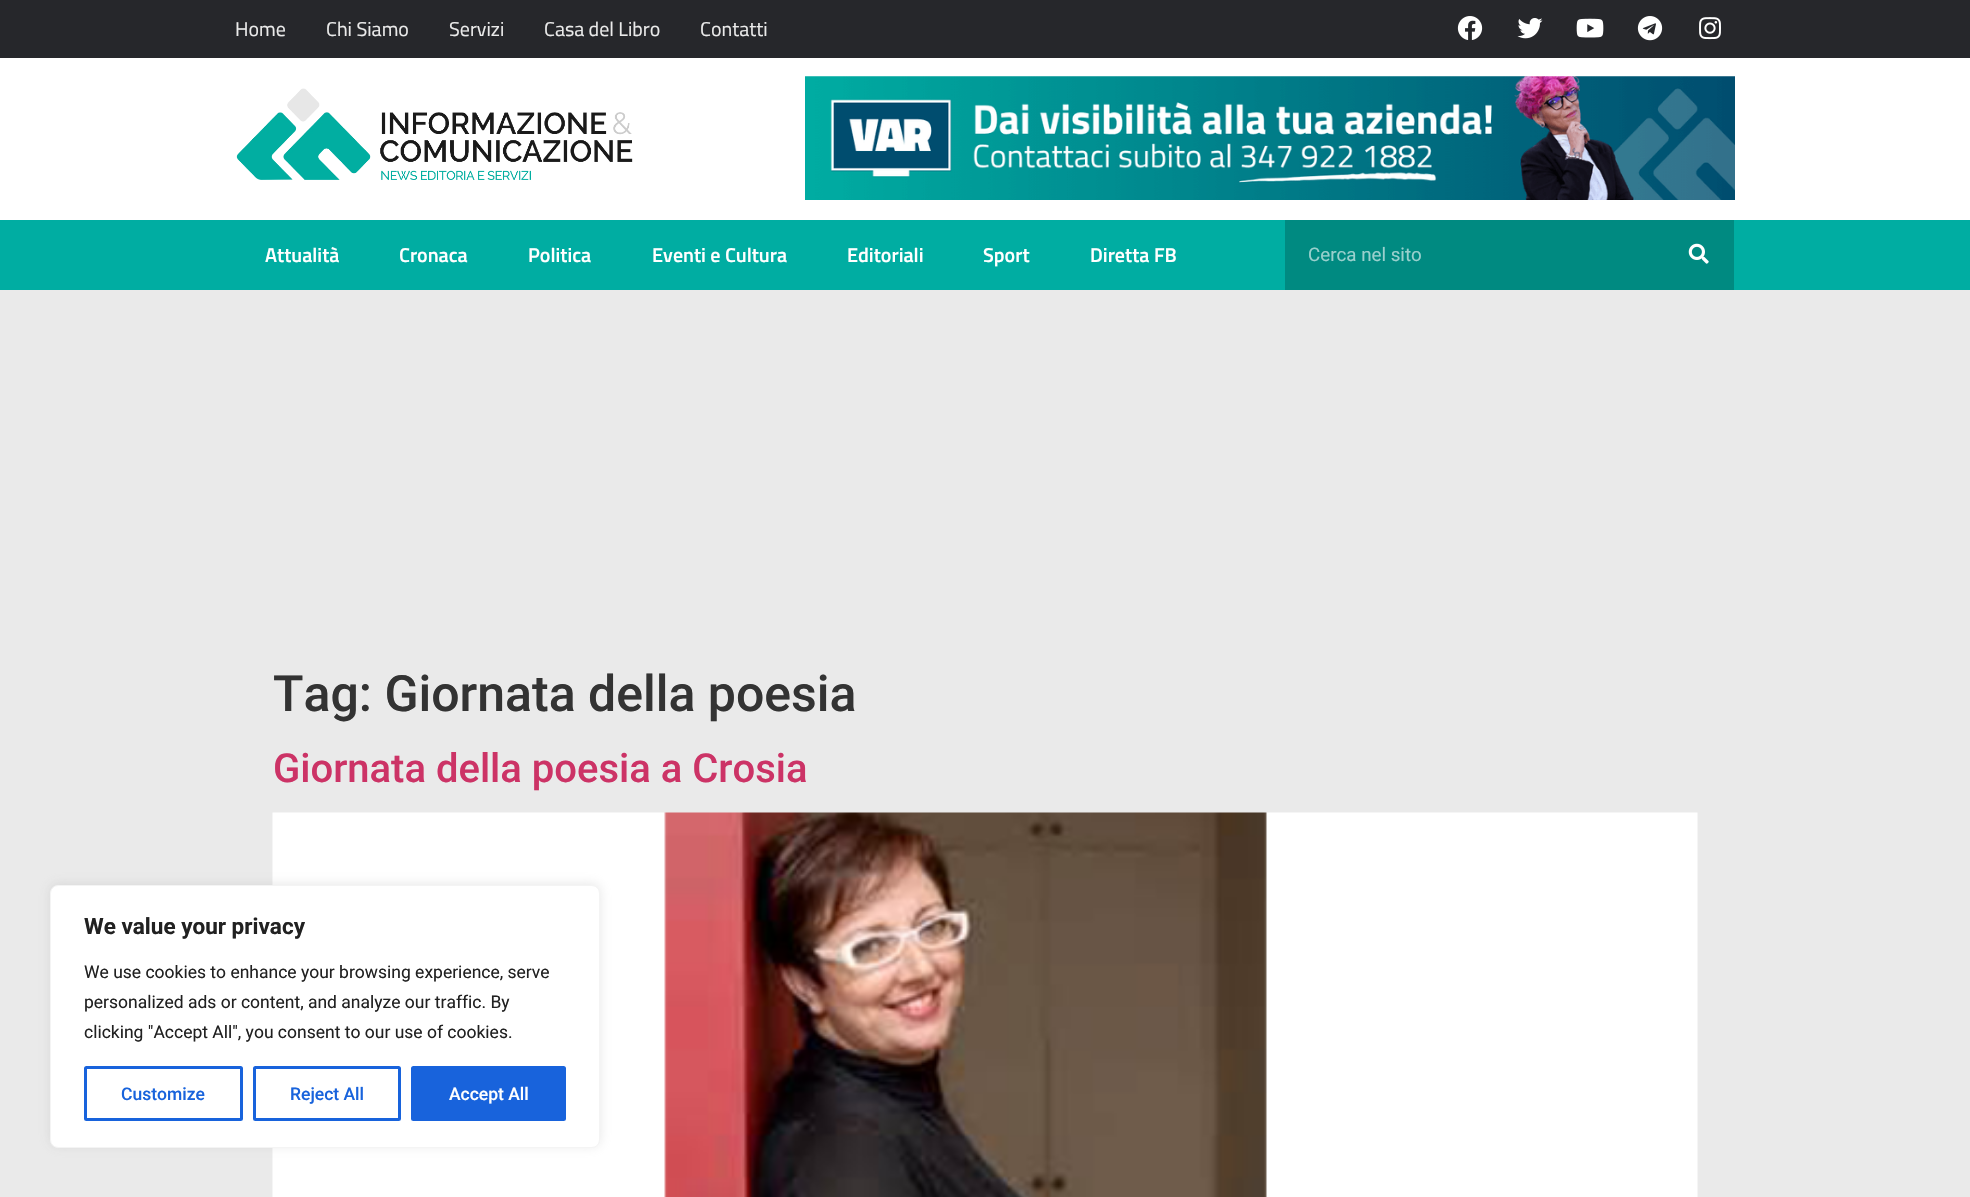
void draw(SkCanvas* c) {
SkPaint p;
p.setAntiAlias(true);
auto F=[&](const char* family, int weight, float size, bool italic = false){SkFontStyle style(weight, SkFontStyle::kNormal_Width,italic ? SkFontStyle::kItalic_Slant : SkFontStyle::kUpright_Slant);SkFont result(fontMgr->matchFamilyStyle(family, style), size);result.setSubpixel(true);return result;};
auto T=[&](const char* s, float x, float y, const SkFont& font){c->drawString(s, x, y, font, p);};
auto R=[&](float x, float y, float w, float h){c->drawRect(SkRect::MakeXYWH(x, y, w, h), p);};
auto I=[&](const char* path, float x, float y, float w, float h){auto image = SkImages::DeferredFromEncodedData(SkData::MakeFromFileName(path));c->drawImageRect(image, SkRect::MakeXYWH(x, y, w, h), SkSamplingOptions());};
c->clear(0xffeaeaea);
p.setColor(0xff26272b);
R(0,0,1970,58);
auto f1 = F("Titillium Web",400,20);
p.setColor(0xffeaeaea);
T("Home",235,36,f1);
T("Chi Siamo",326,36,f1);
T("Servizi",449,36,f1);
T("Casa del Libro",544,36,f1);
T("Contatti",700,36,f1);
I("1.png",1457,16,26,24);
I("2.png",1517,18,26,21);
I("3.png",1576,18,28,20);
I("4.png",1637,16,26,25);
I("5.png",1699,17,22,23);
p.setColor(0xffffffff);
R(0,58,1970,162);
I("6.png",236,88,397,92);
I("7.png",805,76,930,124);
p.setColor(0xff00ada2);
R(0,220,1970,70);
auto f2 = F("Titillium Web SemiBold",600,20);
p.setColor(0xffffffff);
T("Attualità",265,262,f2);
T("Cronaca",399,262,f2);
T("Politica",528,262,f2);
T("Eventi e Cultura",652,262,f2);
T("Editoriali",847,262,f2);
T("Sport",983,262,f2);
T("Diretta FB",1090,262,f2);
p.setColor(0xff008a81);
R(1285,220,449,70);
auto f3 = F("Roboto",400,18.75);
p.setColor(0xff99d0cd);
T("Cerca nel sito",1308,261,f3);
I("8.png",1688,243,21,21);
auto f4 = F("Roboto",500,50);
p.setColor(0xff333333);
T("Tag: Giornata della poesia",273,711,f4);
auto f5 = F("Roboto",500,40);
p.setColor(0xffcc3366);
T("Giornata della poesia a Crosia",273,782,f5);
I("9.png",272,812,1426,385);
p.setColor(0x4dacabab);
p.setMaskFilter(SkMaskFilter::MakeBlur(kNormal_SkBlurStyle, 6));
c->drawRoundRect(SkRect::MakeXYWH(50,884,550,262),8,8,p);
p.setMaskFilter(nullptr);
p.setColor(0xffffffff);
c->drawRoundRect(SkRect::MakeXYWH(50.5,885.5,549,262),7.5,7.5,p);
p.setStroke(true);
p.setStrokeWidth(1);
p.setColor(0xfff4f4f4);
c->drawRoundRect(SkRect::MakeXYWH(50.5,885.5,549,262),7.5,7.5,p);
auto f6 = F("Roboto",700,22.5);
p.setStroke(false);
p.setColor(0xff212121);
T("We value your privacy",84,934,f6);
auto f7 = F("Roboto",400,17.5);
T("We use cookies to enhance your browsing experience, serve",84,978,f7);
T("personalized ads or content, and analyze our traffic. By",84,1008,f7);
T("clicking \"Accept All\", you consent to our use of cookies.",84,1038,f7);
p.setStroke(true);
p.setStrokeWidth(3);
p.setColor(0xff1863dc);
c->drawRoundRect(SkRect::MakeXYWH(85.5,1067.5,156,52),1,1,p);
auto f8 = F("Roboto",500,17.5);
p.setStroke(false);
T("Customize",121,1100,f8);
p.setStroke(true);
c->drawRoundRect(SkRect::MakeXYWH(254.5,1067.5,145,52),1,1,p);
p.setStroke(false);
T("Reject All",290,1100,f8);
c->drawRoundRect(SkRect::MakeXYWH(412.5,1067.5,152,52),1,1,p);
p.setStroke(true);
c->drawRoundRect(SkRect::MakeXYWH(412.5,1067.5,152,52),1,1,p);
p.setStroke(false);
p.setColor(0xffffffff);
T("Accept All",449,1100,f8);
}
